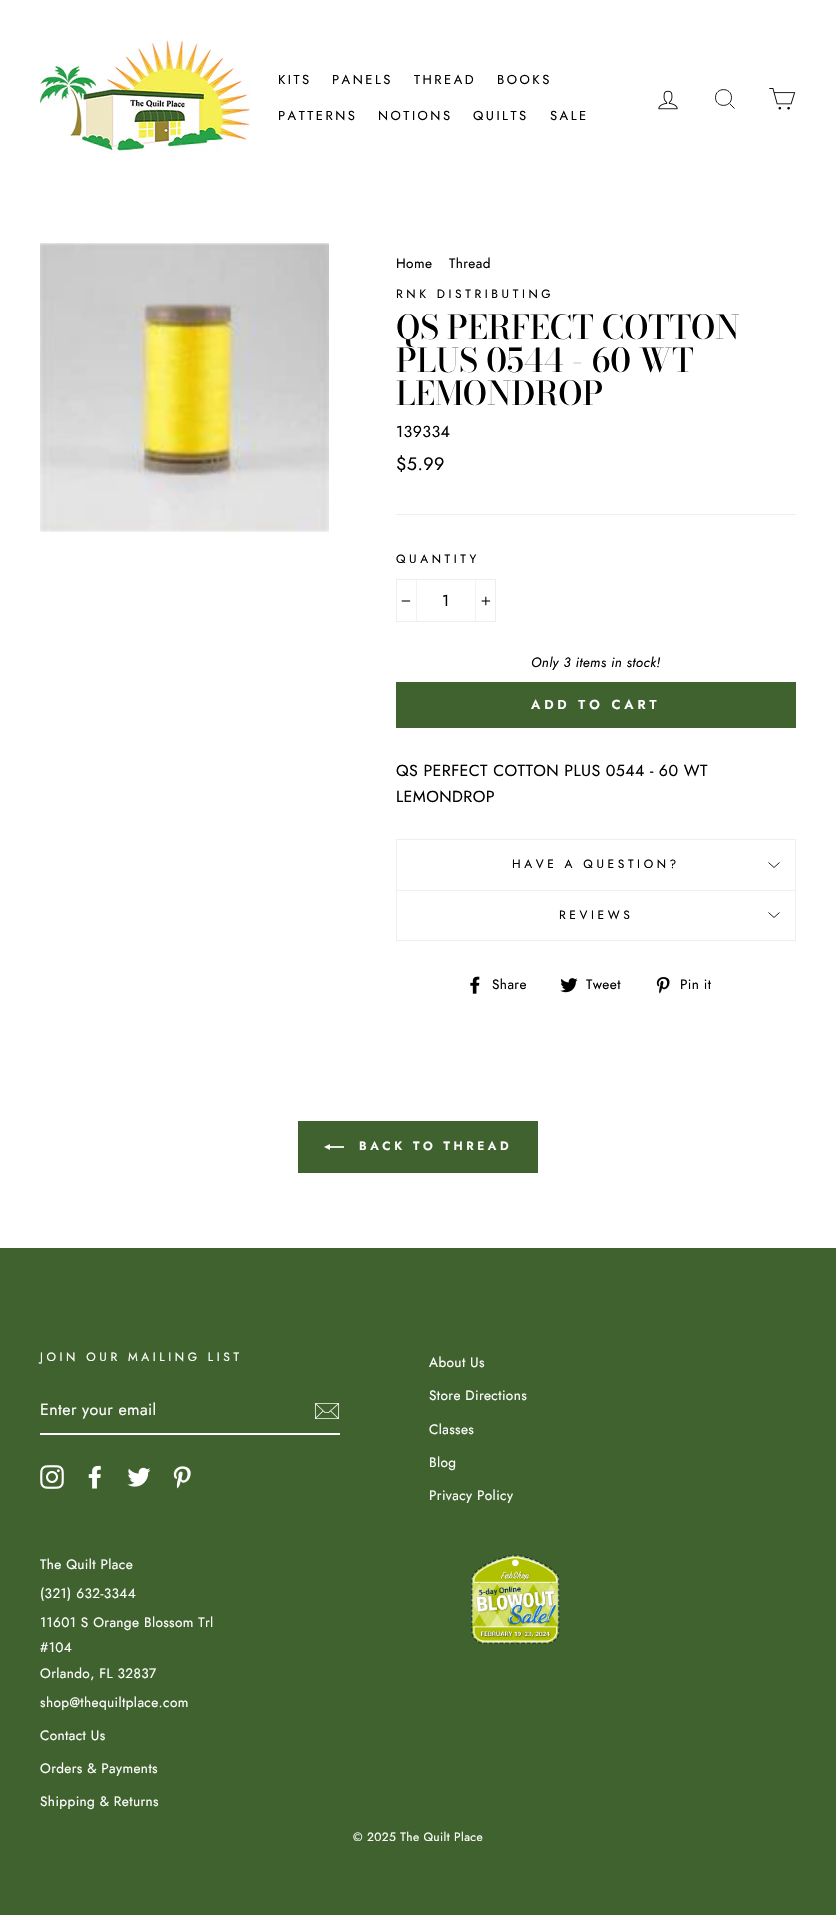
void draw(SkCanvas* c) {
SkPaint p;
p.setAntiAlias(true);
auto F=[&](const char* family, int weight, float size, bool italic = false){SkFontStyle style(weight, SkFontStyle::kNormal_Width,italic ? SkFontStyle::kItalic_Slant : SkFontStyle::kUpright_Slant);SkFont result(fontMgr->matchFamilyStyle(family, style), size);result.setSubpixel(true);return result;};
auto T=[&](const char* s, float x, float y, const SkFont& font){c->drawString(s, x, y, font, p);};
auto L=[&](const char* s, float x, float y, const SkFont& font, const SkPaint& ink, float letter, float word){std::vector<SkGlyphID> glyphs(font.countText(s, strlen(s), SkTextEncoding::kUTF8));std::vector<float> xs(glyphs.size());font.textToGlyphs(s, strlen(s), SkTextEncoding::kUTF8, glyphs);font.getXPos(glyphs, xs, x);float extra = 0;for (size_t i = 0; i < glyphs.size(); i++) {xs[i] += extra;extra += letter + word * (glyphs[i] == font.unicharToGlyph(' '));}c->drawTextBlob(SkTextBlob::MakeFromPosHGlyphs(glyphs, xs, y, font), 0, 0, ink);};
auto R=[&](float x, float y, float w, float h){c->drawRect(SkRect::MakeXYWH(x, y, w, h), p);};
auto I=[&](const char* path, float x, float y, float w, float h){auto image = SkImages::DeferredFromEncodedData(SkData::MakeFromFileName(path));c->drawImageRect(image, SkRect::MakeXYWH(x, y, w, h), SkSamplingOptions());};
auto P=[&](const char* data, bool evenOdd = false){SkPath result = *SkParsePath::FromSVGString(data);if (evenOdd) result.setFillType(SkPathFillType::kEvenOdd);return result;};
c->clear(0xffffffff);
I("1.png",40,40,210,112);
auto f1 = F("Jost",400,13);
p.setColor(0xff000000);
L("KITS",278,84,f1,p,2.5,0);
L("PANELS",332,84,f1,p,2.5,0);
L("THREAD",414,84,f1,p,2.5,0);
L("BOOKS",497,84,f1,p,2.5,0);
L("PATTERNS",278,120,f1,p,2.5,0);
L("NOTIONS",378,120,f1,p,2.5,0);
L("QUILTS",473,120,f1,p,2.5,0);
L("SALE",550,120,f1,p,2.5,0);
I("2.png",658,90,20,20);
p.setStroke(true);
p.setStrokeWidth(.9);
c->drawPath(P("M731.5 97.5c0 10.5-16 10.5-16 0c0-10.5 16-10.5 16 0zm3 11l-5-5"),p);
I("3.png",769,88,27,22);
I("4.png",40,243,289,289);
auto f2 = F("Jost",400,13.6);
p.setStroke(false);
L("Home",396,268,f2,p,.4,0);
L("Thread",449,268,f2,p,.4,0);
auto f3 = F("Jost",400,12);
L("RNK DISTRIBUTING",396,298,f3,p,3.6,0);
auto f4 = F("Bodoni Moda",500,32.75);
T("QS PERFECT COTTON",396,339,f4);
T("PLUS 0544 - 60 WT",396,372,f4);
T("LEMONDROP",396,405,f4);
auto f5 = F("Jost",400,16);
L("139334",396,437,f5,p,.4,0);
auto f6 = F("Jost",400,18);
L("$5.99",396,470,f6,p,.4,0);
p.setColor(0xffeeeeee);
R(396,514,400,1);
p.setColor(0xff000000);
L("QUANTITY",396,563,f3,p,3.6,0);
p.setStroke(true);
p.setStrokeWidth(1);
p.setColor(0xffeeeeee);
c->drawRect(SkRect::MakeXYWH(396.5,579.5,99,42),p);
p.setStroke(false);
p.setColor(0xfff2f2f2);
R(416,579,1,43);
I("5.png",401,600,10,2);
p.setColor(0xff000000);
L("1",442,606,f5,p,.4,0);
p.setColor(0xfff2f2f2);
R(475,579,1,43);
I("6.png",481,596,10,10);
auto f7 = F("Jost",400,13.6,true);
p.setColor(0xff000000);
L("Only 3 items in stock!",531,667,f7,p,.4,0);
p.setColor(0xff40622f);
R(396,682,400,46);
auto f8 = F("Jost",600,13);
p.setColor(0xffffffff);
L("ADD TO CART",531,709,f8,p,3.9,0);
p.setColor(0xff000000);
L("QS PERFECT COTTON PLUS 0544 - 60 WT",396,776,f5,p,.4,0);
L("LEMONDROP",396,802,f5,p,.4,0);
p.setColor(0xffeeeeee);
R(396,940,400,1);
R(396,839,400,1);
R(795,839,1,51);
R(396,839,1,51);
p.setColor(0xff000000);
L("HAVE A QUESTION?",512,868,f3,p,3.6,0);
p.setStroke(true);
p.setStrokeWidth(.9);
c->drawPath(P("M768.5 862.5l5.5 5l5.5-5"),p);
p.setStroke(false);
p.setColor(0xffeeeeee);
R(396,890,400,1);
R(795,890,1,50);
R(396,890,1,50);
p.setColor(0xff000000);
L("REVIEWS",559,919,f3,p,3.6,0);
p.setStroke(true);
c->drawPath(P("M768.5 912.5l5.5 5l5.5-5"),p);
I("7.png",470,976,10,18);
p.setStroke(false);
L("Share",492,989,f2,p,.4,0);
I("8.png",560,978,18,15);
L("Tweet",586,989,f2,p,.4,0);
I("9.png",656,977,14,17);
L("Pin it",680,989,f2,p,.4,0);
p.setColor(0xff40622f);
R(298,1121,240,52);
I("10.png",324,1144,20,6);
auto f9 = F("Jost",600,12);
p.setColor(0xffffffff);
L("BACK TO THREAD",359,1150,f9,p,3.6,0);
p.setColor(0xff40622f);
R(0,1248,836,667);
p.setColor(0xffffffff);
L("JOIN OUR MAILING LIST",40,1361,f3,p,3.6,0);
R(40,1433,300,2);
L("Enter your email",40,1415,f5,p,.4,0);
I("11.png",314,1403,26,16);
I("12.png",40,1465,24,24);
I("13.png",88,1465,13,24);
I("14.png",127,1467,24,20);
I("15.png",173,1466,18,23);
L("About Us",429,1367,f2,p,.4,0);
L("Store Directions",429,1400,f2,p,.4,0);
L("Classes",429,1434,f2,p,.4,0);
L("Blog",429,1467,f2,p,.4,0);
L("Privacy Policy",429,1500,f2,p,.4,0);
L("The Quilt Place",40,1569,f2,p,.4,0);
L("(321) 632-3344",40,1598,f2,p,.4,0);
L("11601 S Orange Blossom Trl",40,1627,f2,p,.4,0);
L("#104",40,1652,f2,p,.4,0);
L("Orlando, FL 32837",40,1678,f2,p,.4,0);
L("shop@thequiltplace.com",40,1707,f2,p,.4,0);
L("Contact Us",40,1740,f2,p,.4,0);
L("Orders & Payments",40,1773,f2,p,.4,0);
L("Shipping & Returns",40,1806,f2,p,.4,0);
I("16.png",471,1554,89,90);
L("© 2025 The Quilt Place",353,1841,f3,p,.4,0);
}
